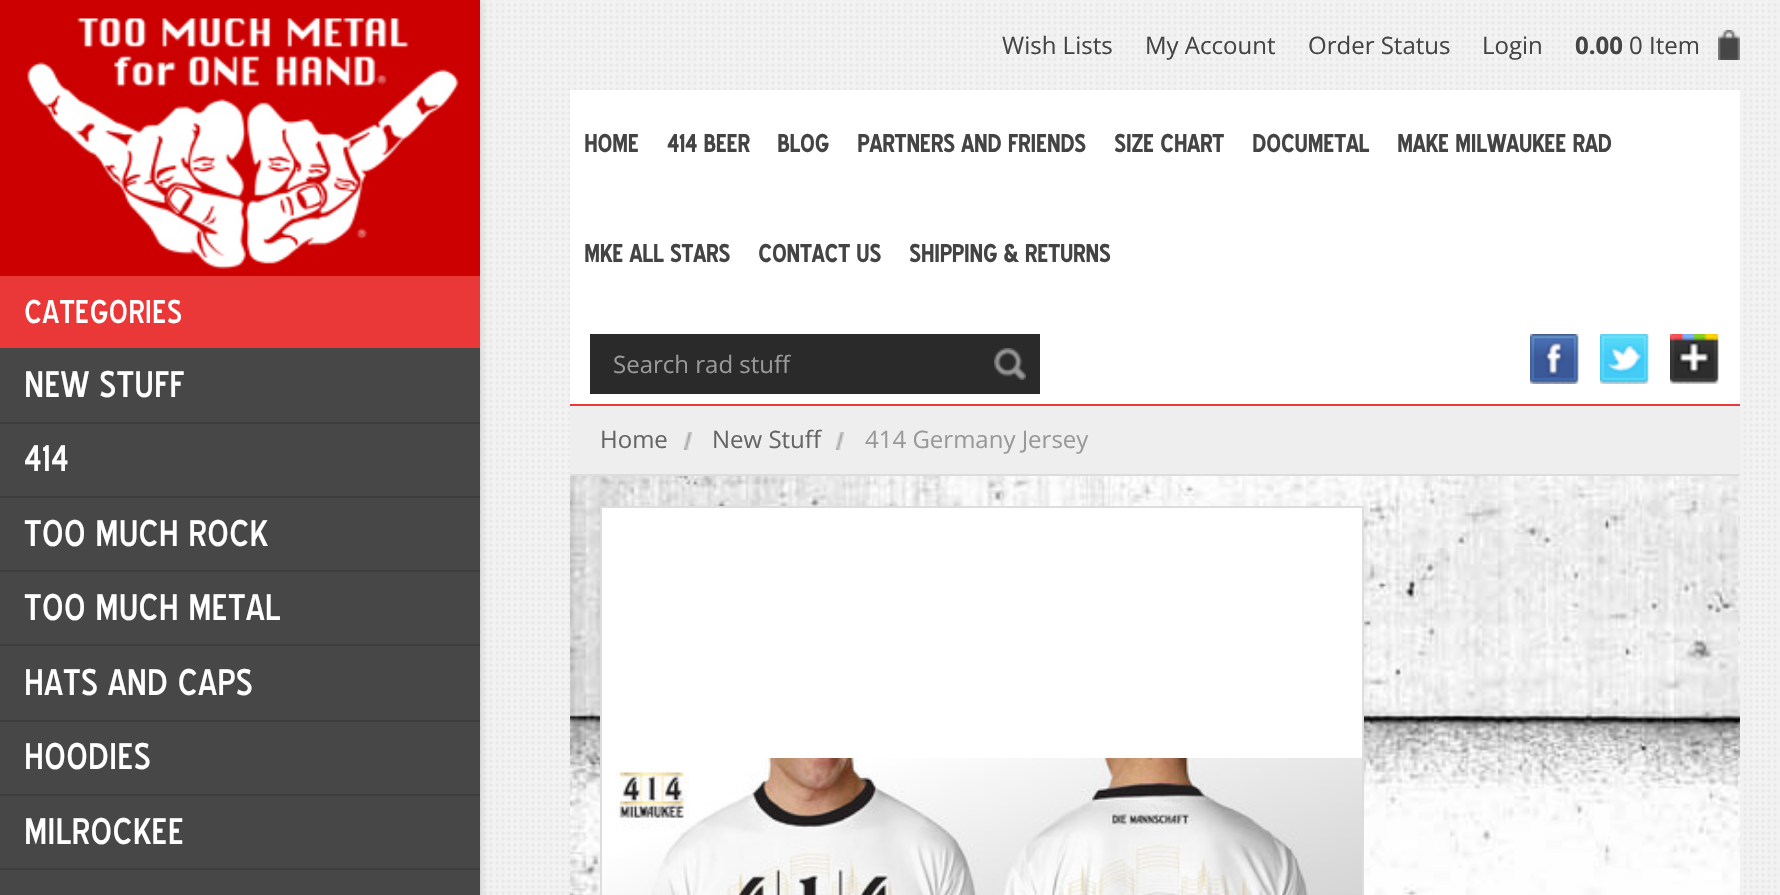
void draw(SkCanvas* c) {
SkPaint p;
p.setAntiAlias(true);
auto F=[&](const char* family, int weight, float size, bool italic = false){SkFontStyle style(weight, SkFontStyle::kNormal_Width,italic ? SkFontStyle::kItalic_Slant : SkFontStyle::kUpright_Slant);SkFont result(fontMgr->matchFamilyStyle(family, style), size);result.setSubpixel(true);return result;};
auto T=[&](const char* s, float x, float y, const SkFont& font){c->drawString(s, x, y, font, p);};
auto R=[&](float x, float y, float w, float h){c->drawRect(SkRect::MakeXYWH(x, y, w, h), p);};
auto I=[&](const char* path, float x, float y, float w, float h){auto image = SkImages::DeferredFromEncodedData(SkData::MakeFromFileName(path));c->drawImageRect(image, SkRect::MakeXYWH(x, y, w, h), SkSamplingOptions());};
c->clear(0xffffffff);
I("1.png",480,0,1300,895);
auto f1 = F("Open Sans",400,24);
p.setColor(0xff444444);
T("Wish Lists",1002,54,f1);
T("My Account",1145,54,f1);
T("Order Status",1308,54,f1);
T("Login",1482,54,f1);
I("2.png",1718,30,22,30);
auto f2 = F("Open Sans",700,24);
T("0.00",1575,54,f2);
T("0 Item",1629,54,f1);
p.setColor(0xffffffff);
R(570,90,1170,314);
p.setColor(0xffea3737);
R(570,404,1170,2);
auto f3 = F("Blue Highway",700,24);
p.setColor(0xff444444);
T("HOME",584,152,f3);
T("414 BEER",667,152,f3);
T("BLOG",777,152,f3);
T("PARTNERS AND FRIENDS",857,152,f3);
T("SIZE CHART",1114,152,f3);
T("DOCUMETAL",1252,152,f3);
T("MAKE MILWAUKEE RAD",1397,152,f3);
T("MKE ALL STARS",584,262,f3);
T("CONTACT US",758,262,f3);
T("SHIPPING & RETURNS",909,262,f3);
p.setColor(0xff2a2a2a);
R(590,334,450,60);
p.setColor(0xff999999);
T("Search rad stuff",613,373,f1);
I("3.png",994,348,32,32);
I("4.png",1530,334,49,50);
I("5.png",1600,334,49,50);
I("6.png",1670,334,49,50);
p.setColor(0xffeeeeee);
R(570,406,1170,68);
p.setColor(0xffdddddd);
R(570,474,1170,2);
I("7.png",684,432,8,18);
p.setColor(0xff666666);
T("Home",600,448,f1);
I("7.png",836,432,8,18);
T("New Stuff",712,448,f1);
p.setColor(0xff999999);
T("414 Germany Jersey",865,448,f1);
I("8.png",570,476,1170,419);
p.setColor(0xffffffff);
R(602,508,760,250);
p.setStroke(true);
p.setStrokeWidth(2);
p.setColor(0xffdddddd);
c->drawRect(SkRect::MakeXYWH(601,507,762,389),p);
I("9.png",602,758,760,137);
p.setStroke(false);
p.setColor(0x33000000);
p.setMaskFilter(SkMaskFilter::MakeBlur(kNormal_SkBlurStyle, 4));
c->drawRect(SkRect::MakeXYWH(0,0,480,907),p);
p.setMaskFilter(nullptr);
p.setColor(0xff474747);
R(0,348,480,547);
I("10.png",0,0,480,276);
p.setColor(0xffea3737);
R(0,276,480,72);
auto f4 = F("Blue Highway",400,32);
p.setColor(0xffffffff);
T("CATEGORIES",24,323,f4);
p.setColor(0xff3d3d3d);
R(0,422,480,2);
auto f5 = F("Blue Highway",400,36);
p.setColor(0xffffffff);
T("NEW STUFF",24,397,f5);
p.setColor(0xff3d3d3d);
R(0,496,480,2);
p.setColor(0xffffffff);
T("414",24,471,f5);
p.setColor(0xff3d3d3d);
R(0,570,480,2);
p.setColor(0xffffffff);
T("TOO MUCH ROCK",24,546,f5);
p.setColor(0xff3d3d3d);
R(0,644,480,2);
p.setColor(0xffffffff);
T("TOO MUCH METAL",24,620,f5);
p.setColor(0xff3d3d3d);
R(0,720,480,2);
p.setColor(0xffffffff);
T("HATS AND CAPS",24,695,f5);
p.setColor(0xff3d3d3d);
R(0,794,480,2);
p.setColor(0xffffffff);
T("HOODIES",24,769,f5);
p.setColor(0xff3d3d3d);
R(0,868,480,2);
p.setColor(0xffffffff);
T("MILROCKEE",24,844,f5);
}
